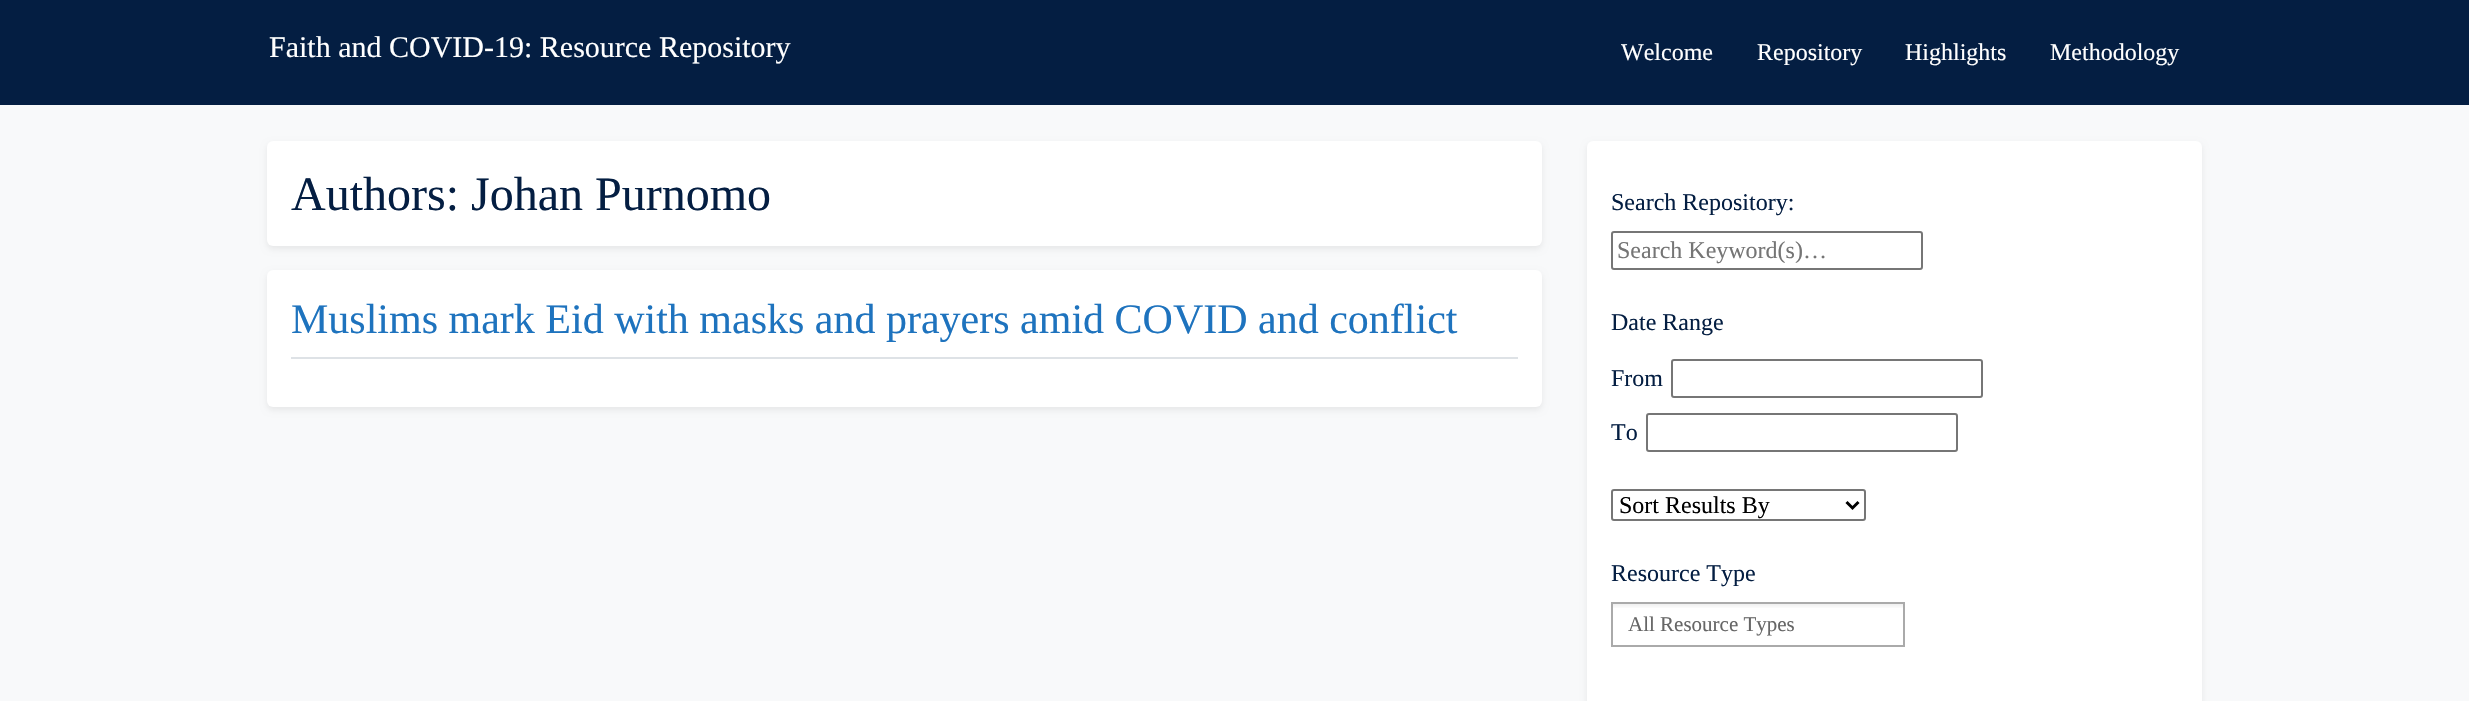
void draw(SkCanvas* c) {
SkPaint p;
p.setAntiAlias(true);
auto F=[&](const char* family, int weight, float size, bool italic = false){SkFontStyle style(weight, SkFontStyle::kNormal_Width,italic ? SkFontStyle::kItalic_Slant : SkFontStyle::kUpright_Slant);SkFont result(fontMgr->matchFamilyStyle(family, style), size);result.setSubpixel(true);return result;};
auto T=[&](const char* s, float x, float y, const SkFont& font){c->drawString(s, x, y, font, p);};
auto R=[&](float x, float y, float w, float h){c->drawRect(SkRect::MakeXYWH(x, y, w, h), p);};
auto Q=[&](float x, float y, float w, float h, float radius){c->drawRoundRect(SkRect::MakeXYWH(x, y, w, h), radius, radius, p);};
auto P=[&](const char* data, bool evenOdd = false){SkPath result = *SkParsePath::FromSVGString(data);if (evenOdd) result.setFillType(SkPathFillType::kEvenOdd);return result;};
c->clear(0xfff8f9fa);
p.setColor(0xff041e42);
R(0,0,2469,105);
auto f1 = F("Liberation Serif",400,30);
p.setColor(0xffffffff);
T("Faith and COVID-19: Resource Repository",269,57,f1);
auto f2 = F("Liberation Serif",400,24);
T("Welcome",1621,60,f2);
T("Repository",1757,60,f2);
T("Highlights",1905,60,f2);
T("Methodology",2050,60,f2);
p.setColor(0x12000000);
p.setMaskFilter(SkMaskFilter::MakeBlur(kNormal_SkBlurStyle, 3));
c->drawRoundRect(SkRect::MakeXYWH(267,144,1275,105),6,6,p);
p.setMaskFilter(nullptr);
p.setColor(0xffffffff);
Q(267,141,1275,105,6);
auto f3 = F("Liberation Serif",400,48);
p.setColor(0xff041e42);
T("Authors: Johan Purnomo",291,210,f3);
p.setColor(0x12000000);
p.setMaskFilter(SkMaskFilter::MakeBlur(kNormal_SkBlurStyle, 3));
c->drawRoundRect(SkRect::MakeXYWH(267,273,1275,137),6,6,p);
p.setMaskFilter(nullptr);
p.setColor(0xffffffff);
Q(267,270,1275,137,6);
p.setColor(0xffdee2e6);
R(291,357,1227,2);
auto f4 = F("Liberation Serif",400,42);
p.setColor(0xff1e73be);
T("Muslims mark Eid with masks and prayers amid COVID and conflict",291,333,f4);
p.setColor(0x12000000);
p.setMaskFilter(SkMaskFilter::MakeBlur(kNormal_SkBlurStyle, 3));
c->drawRoundRect(SkRect::MakeXYWH(1587,144,615,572),6,6,p);
p.setMaskFilter(nullptr);
p.setColor(0xffffffff);
Q(1587,141,615,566,6);
p.setColor(0xff041e42);
T("Search Repository:",1611,210,f2);
p.setStroke(true);
p.setStrokeWidth(2);
p.setColor(0xff767676);
c->drawRoundRect(SkRect::MakeXYWH(1612,232,310,37),2,2,p);
p.setStroke(false);
p.setColor(0xff757575);
T("Search Keyword(s)…",1617,258,f2);
p.setColor(0xff041e42);
T("Date Range",1611,330,f2);
T("From",1611,386,f2);
p.setStroke(true);
p.setColor(0xff767676);
c->drawRoundRect(SkRect::MakeXYWH(1672,360,310,37),2,2,p);
p.setStroke(false);
p.setColor(0xff041e42);
T("To",1611,440,f2);
p.setStroke(true);
p.setColor(0xff767676);
c->drawRoundRect(SkRect::MakeXYWH(1647,414,310,37),2,2,p);
c->drawRoundRect(SkRect::MakeXYWH(1612,490,253,30),2,2,p);
p.setStrokeWidth(3);
p.setColor(0xff000000);
c->drawPath(P("M1846.5 502l6 6l6-6"),p);
p.setStroke(false);
T("Sort Results By",1619,513,f2);
p.setColor(0xff041e42);
T("Resource Type",1611,581,f2);
{
const SkColor colors[] = {0xffeeeeee,0xffffffff};
const float stops[] = {.01,.15};
const SkPoint ends[] = {{1758,603}, {1758,645}};
p.setShader(SkGradientShader::MakeLinear(ends, colors, stops, 2, SkTileMode::kClamp));
p.setAlpha(255);
}
R(1613,604,290,4);
p.setStroke(true);
p.setStrokeWidth(2);
p.setShader(nullptr);
p.setColor(0xffaaaaaa);
c->drawRect(SkRect::MakeXYWH(1612,603,292,43),p);
auto f5 = F("Liberation Serif",400,21);
p.setStroke(false);
p.setColor(0xff666666);
T("All Resource Types",1628,631,f5);
}
